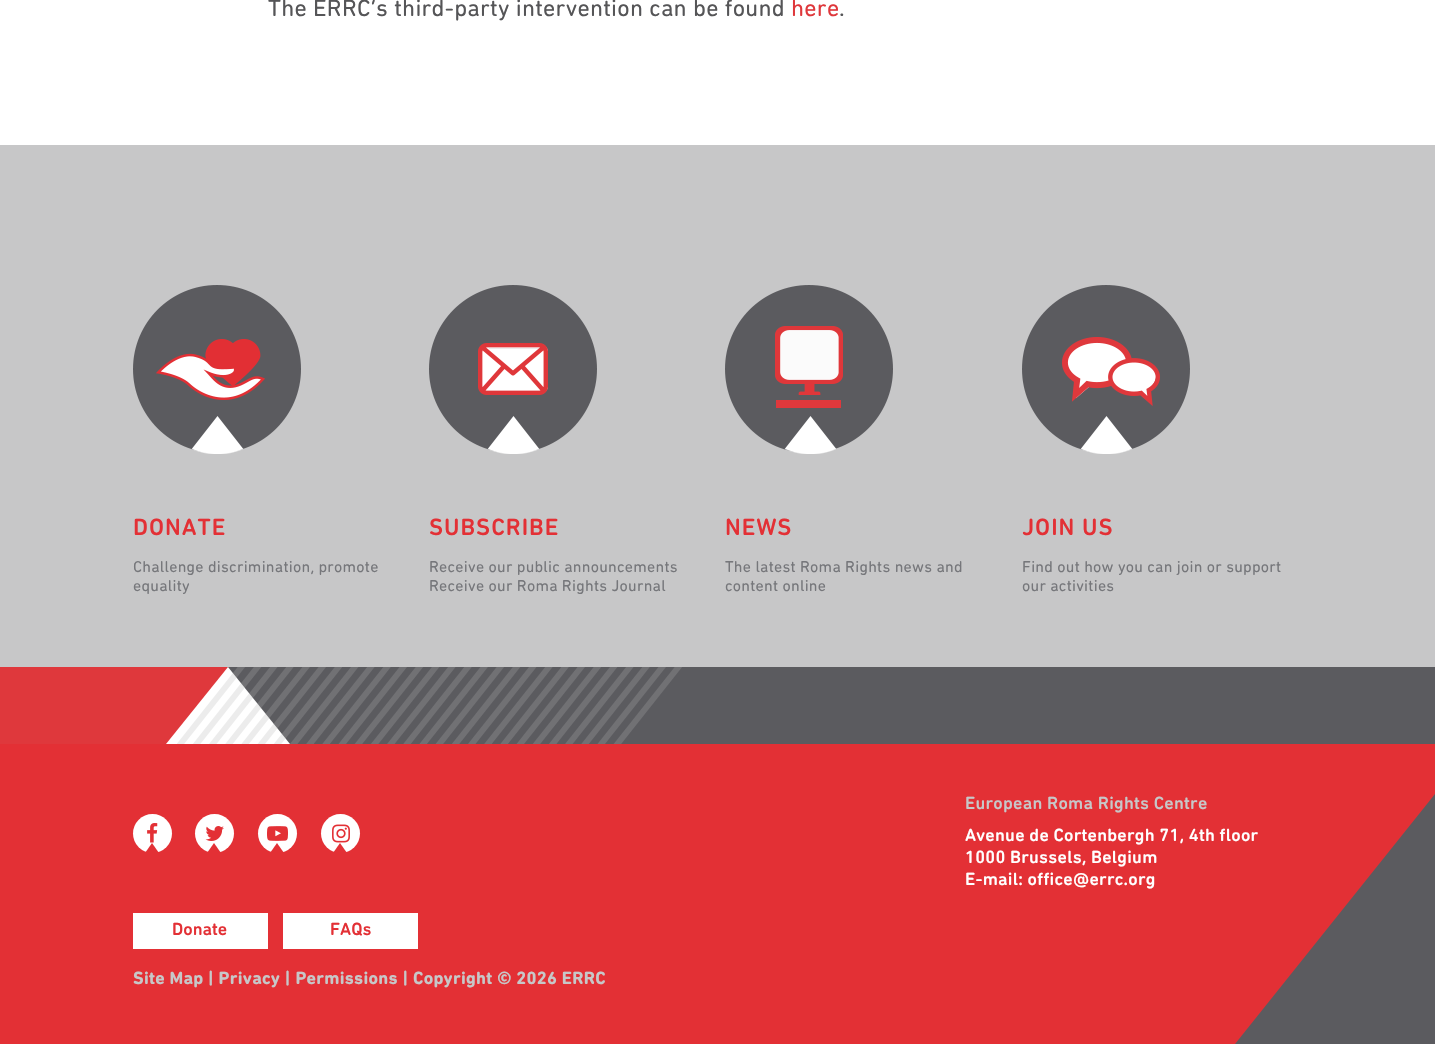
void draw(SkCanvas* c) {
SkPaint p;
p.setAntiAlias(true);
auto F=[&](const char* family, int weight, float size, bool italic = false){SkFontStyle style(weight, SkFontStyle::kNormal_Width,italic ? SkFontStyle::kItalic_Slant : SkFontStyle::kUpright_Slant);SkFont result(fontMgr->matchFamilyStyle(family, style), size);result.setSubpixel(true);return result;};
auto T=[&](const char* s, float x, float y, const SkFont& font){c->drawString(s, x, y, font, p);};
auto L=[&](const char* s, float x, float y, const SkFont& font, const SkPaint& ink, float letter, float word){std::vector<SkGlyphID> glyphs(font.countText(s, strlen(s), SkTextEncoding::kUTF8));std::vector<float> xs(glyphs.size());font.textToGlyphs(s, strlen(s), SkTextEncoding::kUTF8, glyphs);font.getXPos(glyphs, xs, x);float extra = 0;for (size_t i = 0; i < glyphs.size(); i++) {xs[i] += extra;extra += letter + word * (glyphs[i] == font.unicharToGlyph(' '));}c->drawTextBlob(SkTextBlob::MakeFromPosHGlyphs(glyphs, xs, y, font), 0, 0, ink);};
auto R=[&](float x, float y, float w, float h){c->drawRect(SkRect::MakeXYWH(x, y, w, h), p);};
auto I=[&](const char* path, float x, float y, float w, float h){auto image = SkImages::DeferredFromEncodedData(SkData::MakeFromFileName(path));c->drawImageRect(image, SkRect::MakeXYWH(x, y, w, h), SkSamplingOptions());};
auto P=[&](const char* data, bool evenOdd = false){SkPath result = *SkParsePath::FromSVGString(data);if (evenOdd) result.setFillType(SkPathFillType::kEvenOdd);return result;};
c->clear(0xffffffff);
auto f1 = F("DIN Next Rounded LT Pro",400,24);
p.setColor(0xff555557);
L("The ERRC’s third-party intervention can be found",268,16,f1,p,.25,0);
p.setColor(0xffdf383c);
L("here",791,16,f1,p,.25,0);
p.setColor(0xff555557);
L(".",839,16,f1,p,.25,0);
p.setColor(0xffc7c7c8);
R(0,145,1435,522);
I("1.png",133,285,168,169);
auto f2 = F("DIN Next Rounded LT Pro",500,24);
p.setColor(0xffe33035);
L("DONATE",133,535,f2,p,1,0);
auto f3 = F("DIN Next Rounded LT Pro",400,16);
p.setColor(0xff76777b);
L("Challenge discrimination, promote",133,572,f3,p,.25,0);
L("equality",133,591,f3,p,.25,0);
I("2.png",429,285,168,169);
p.setColor(0xffe33035);
L("SUBSCRIBE",429,535,f2,p,1,0);
p.setColor(0xff76777b);
L("Receive our public announcements",429,572,f3,p,.25,0);
L("Receive our Roma Rights Journal",429,591,f3,p,.25,0);
I("3.png",725,285,168,169);
p.setColor(0xffe33035);
L("NEWS",725,535,f2,p,1,0);
p.setColor(0xff76777b);
L("The latest Roma Rights news and",725,572,f3,p,.25,0);
L("content online",725,591,f3,p,.25,0);
I("4.png",1022,285,168,169);
p.setColor(0xffe33035);
L("JOIN US",1022,535,f2,p,1,0);
p.setColor(0xff76777b);
L("Find out how you can join or support",1022,572,f3,p,.25,0);
L("our activities",1022,591,f3,p,.25,0);
p.setColor(0xff5b5b5f);
R(228,667,1207,77);
p.setColor(0xffdf383c);
R(0,667,228,77);
p.setColor(0xffffffff);
c->drawPath(P("M228 744h-62l62-77z"),p);
c->drawPath(P("M290 744h-62v-77z"),p);
I("5.png",177,667,505,77);
p.setColor(0xffe33035);
R(0,744,1435,300);
auto f4 = F("DIN Next Rounded LT Pro",500,18);
p.setColor(0xffc7c7c8);
L("European Roma Rights Centre",965,809,f4,p,.25,0);
p.setColor(0xff5b5b5f);
c->drawPath(P("M1435 1044h-200l200-250z"),p);
p.setColor(0xffffffff);
L("Avenue de Cortenbergh 71, 4th floor",965,841,f4,p,.25,0);
L("1000 Brussels, Belgium",965,863,f4,p,.25,0);
L("E-mail: office@errc.org",965,885,f4,p,.25,0);
c->drawCircle(152.5,833.5,19.5,p);
I("6.png",147,823,11,20);
p.setColor(0xffe33035);
c->drawPath(P("M159 853h-14l7-10z"),p);
p.setColor(0xffffffff);
c->drawCircle(214.5,833.5,19.5,p);
I("7.png",205,826,19,15);
p.setColor(0xffe33035);
c->drawPath(P("M221 853h-14l7-10z"),p);
p.setColor(0xffffffff);
c->drawCircle(277.5,833.5,19.5,p);
I("8.png",267,826,21,15);
p.setColor(0xffe33035);
c->drawPath(P("M284 853h-14l7-10z"),p);
p.setColor(0xffffffff);
c->drawCircle(340.5,833.5,19.5,p);
I("9.png",332,824,18,19);
p.setColor(0xffe33035);
c->drawPath(P("M347 853h-14l7-10z"),p);
p.setColor(0xffffffff);
R(133,913,135,36);
p.setColor(0xffe33035);
T("Donate",172,935,f4);
p.setColor(0xffffffff);
R(283,913,135,36);
p.setColor(0xffe33035);
T("FAQs",330,935,f4);
auto f5 = F("DIN Next Rounded LT Pro",700,18);
p.setColor(0xffc7c7c8);
L("Site Map | Privacy | Permissions | Copyright © 2026 ERRC",133,984,f5,p,.25,0);
}
